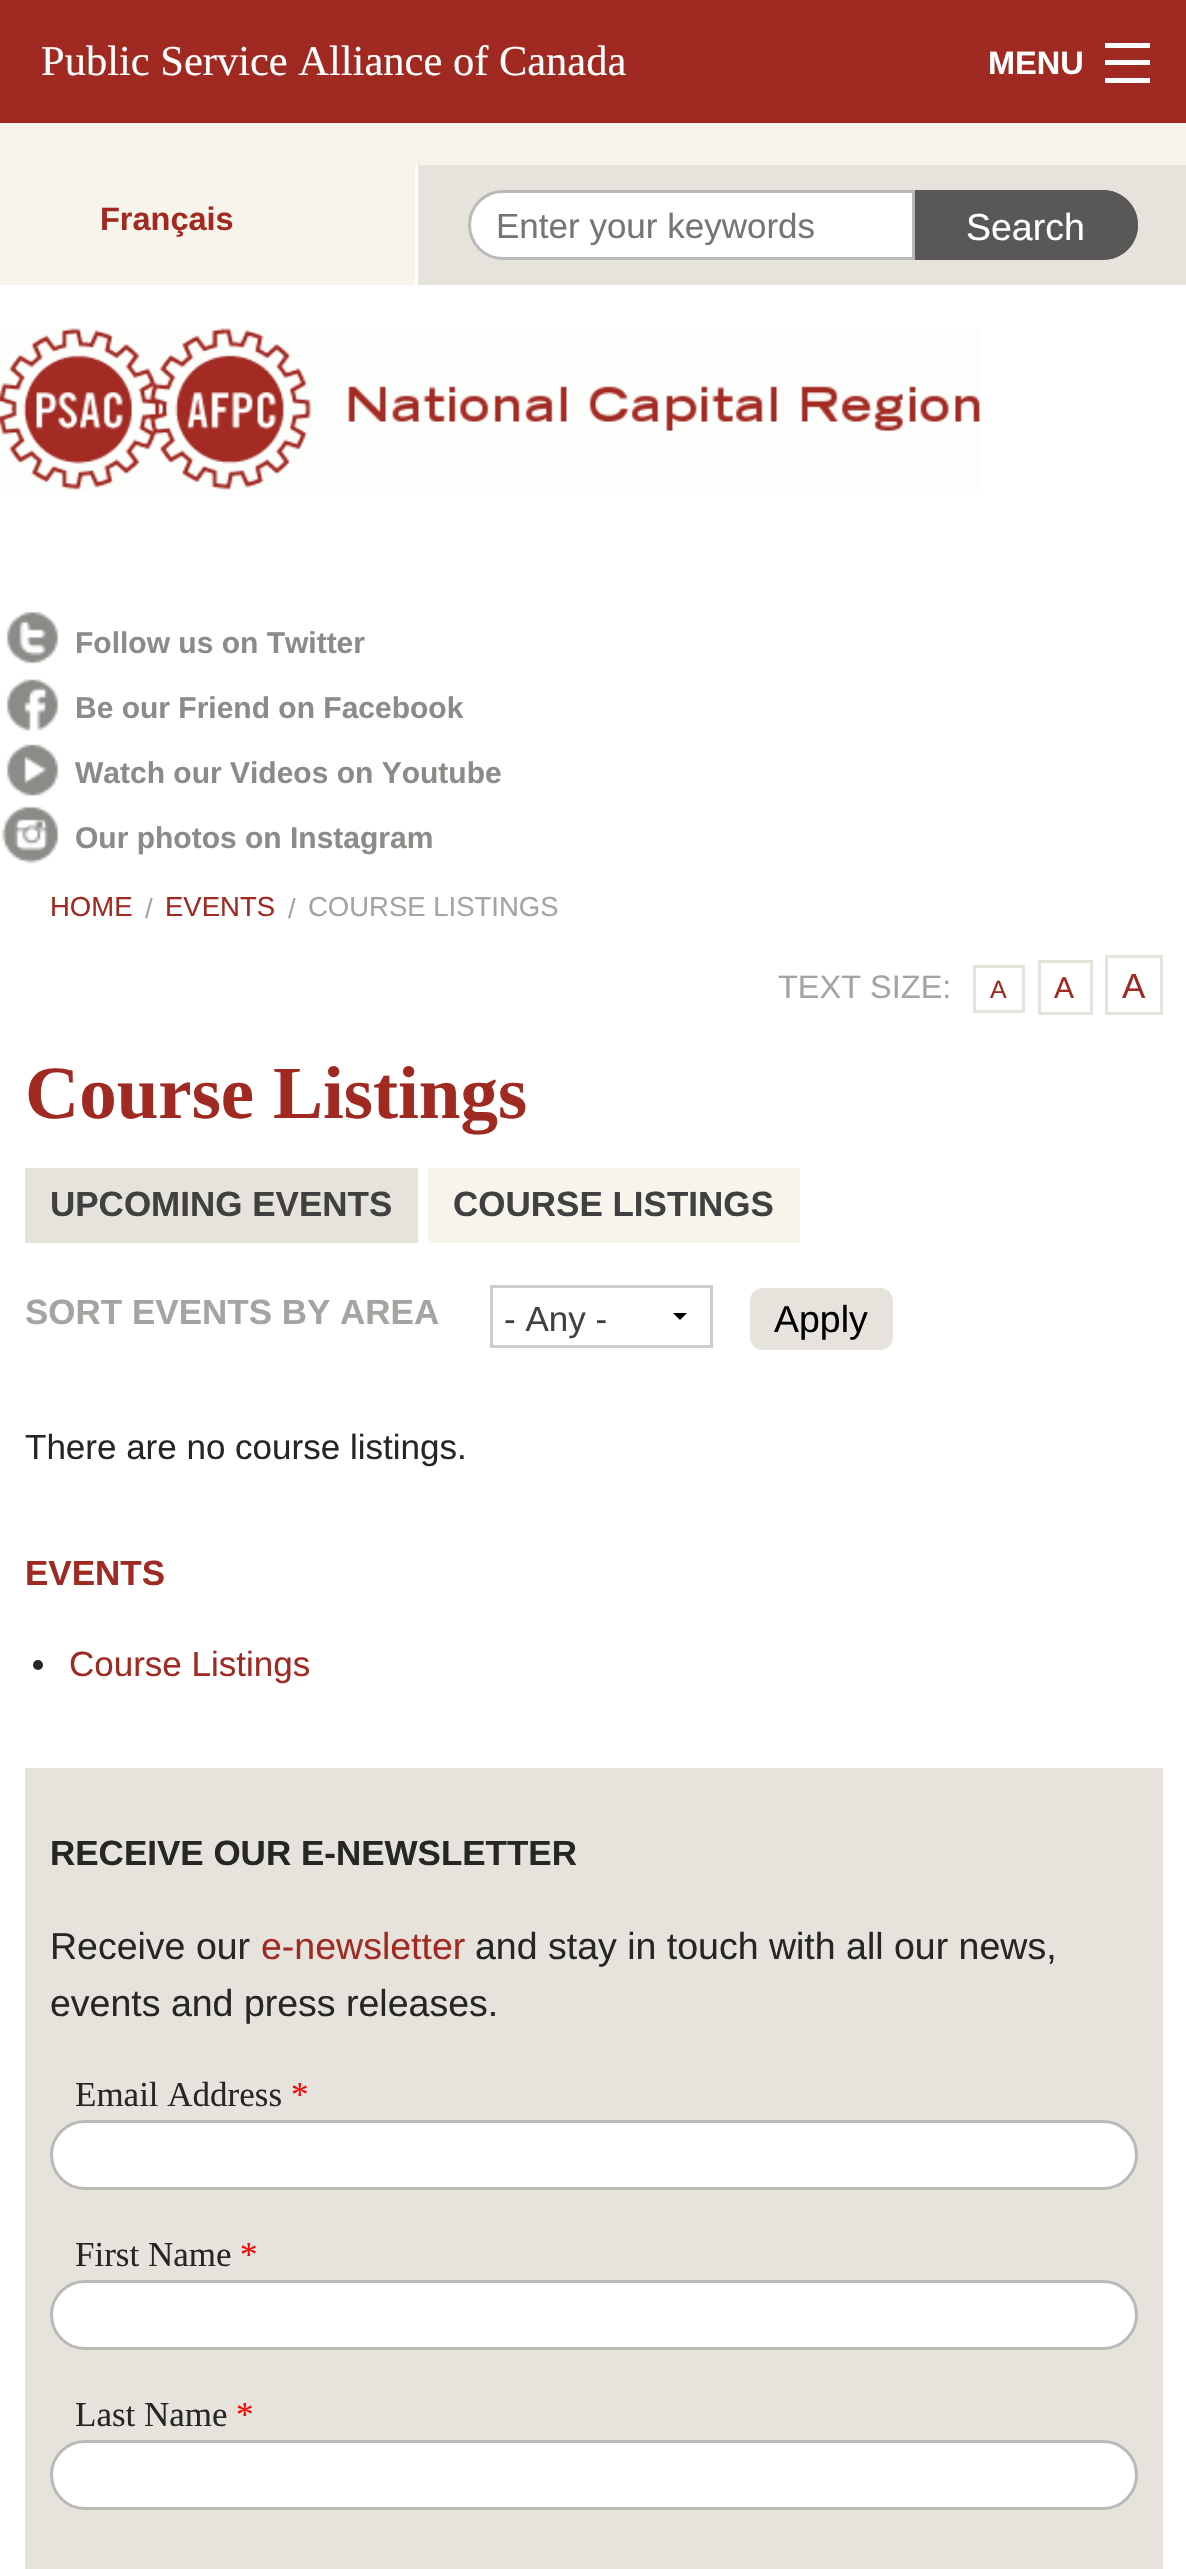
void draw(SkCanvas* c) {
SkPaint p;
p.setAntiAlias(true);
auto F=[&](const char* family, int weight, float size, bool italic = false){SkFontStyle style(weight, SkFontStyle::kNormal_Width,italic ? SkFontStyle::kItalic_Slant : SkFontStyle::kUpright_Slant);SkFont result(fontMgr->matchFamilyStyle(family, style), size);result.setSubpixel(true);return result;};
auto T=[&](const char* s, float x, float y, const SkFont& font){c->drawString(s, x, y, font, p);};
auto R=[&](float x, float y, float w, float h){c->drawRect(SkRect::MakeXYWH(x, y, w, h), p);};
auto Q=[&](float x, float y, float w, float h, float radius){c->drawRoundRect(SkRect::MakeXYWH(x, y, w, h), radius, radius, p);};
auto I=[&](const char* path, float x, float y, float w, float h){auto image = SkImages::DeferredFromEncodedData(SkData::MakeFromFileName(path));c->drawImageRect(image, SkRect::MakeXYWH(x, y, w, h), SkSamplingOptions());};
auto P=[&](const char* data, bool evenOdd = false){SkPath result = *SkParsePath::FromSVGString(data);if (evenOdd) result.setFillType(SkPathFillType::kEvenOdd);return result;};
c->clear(0xffffffff);
p.setColor(0xffa02a21);
R(0,0,1186,123);
auto f1 = F("Liberation Serif",400,42.5);
p.setColor(0xffffffff);
T("Public Service Alliance of Canada",41,75,f1);
auto f2 = F("Liberation Sans",700,32.5);
T("MENU",988,74,f2);
R(1105,78,45,5);
R(1105,60,45,5);
R(1105,43,45,5);
p.setColor(0xfff7f4ec);
R(0,123,1186,162);
p.setColor(0xffa02a21);
T("Français",100,230,f2);
p.setColor(0xffe6e3dd);
R(418,165,768,120);
p.setColor(0xffffffff);
R(415,165,3,120);
c->drawPath(P("M503 191.5h410.5v67h-410.5c-18.5 0-33.5-15-33.5-33.5c0-18.5 15-33.5 33.5-33.5z"),p);
p.setStroke(true);
p.setStrokeWidth(3);
p.setColor(0xffb9b9b8);
c->drawPath(P("M503 191.5h410.5v67h-410.5c-18.5 0-33.5-15-33.5-33.5c0-18.5 15-33.5 33.5-33.5z"),p);
c->save();
c->clipRect(SkRect::MakeXYWH(495,205,405,40));
auto f3 = F("Liberation Sans",400,35);
p.setStroke(false);
p.setColor(0xff757575);
T("Enter your keywords",496,238,f3);
c->restore();
p.setColor(0xff595856);
c->drawPath(P("M915 190h188c19.5 0 35 15.5 35 35c0 19.5-15.5 35-35 35h-188z"),p);
c->drawPath(P("M915 190h187c20 0 36 16 36 35c0 19-16 35-36 35h-187zm3 2h184c18 0 33 15 33 33c0 19-15 35-33 35h-184z",true),p);
auto f4 = F("Liberation Sans",400,37.5);
p.setColor(0xffffffff);
T("Search",966,240,f4);
I("1.png",0,328,980,162);
I("2.png",6,611,53,53);
auto f5 = F("Liberation Sans",700,30);
p.setColor(0xff8c8b88);
T("Follow us on Twitter",75,653,f5);
I("3.png",6,679,53,52);
T("Be our Friend on Facebook",75,718,f5);
I("4.png",6,744,53,52);
T("Watch our Videos on Youtube",75,783,f5);
I("5.png",1,806,58,58);
T("Our photos on Instagram",75,848,f5);
auto f6 = F("Liberation Sans",400,27.5);
p.setColor(0xffa02a21);
T("HOME",50,916,f6);
p.setColor(0xffa6a4a1);
T("/",145,918,f6);
p.setColor(0xffa02a21);
T("EVENTS",165,916,f6);
p.setColor(0xffa6a4a1);
T("/",288,918,f6);
T("COURSE LISTINGS",308,916,f6);
auto f7 = F("Liberation Sans",400,32.5);
T("TEXT SIZE:",778,998,f7);
p.setStroke(true);
p.setColor(0xffe6e3dd);
c->drawRect(SkRect::MakeXYWH(974.5,966.5,49,45),p);
auto f8 = F("Liberation Sans",400,25);
p.setStroke(false);
p.setColor(0xffa02a21);
T("A",990,998,f8);
p.setStroke(true);
p.setColor(0xffe6e3dd);
c->drawRect(SkRect::MakeXYWH(1039.5,961.5,52,52),p);
auto f9 = F("Liberation Sans",400,30);
p.setStroke(false);
p.setColor(0xffa02a21);
T("A",1054,998,f9);
p.setStroke(true);
p.setColor(0xffe6e3dd);
c->drawRect(SkRect::MakeXYWH(1106.5,956.5,55,57),p);
p.setStroke(false);
p.setColor(0xffa02a21);
T("A",1122,998,f3);
auto f10 = F("Liberation Serif",700,75);
T("Course Listings",25,1118,f10);
p.setColor(0xffe6e3dd);
R(25,1168,393,75);
auto f11 = F("Liberation Sans",700,35);
p.setColor(0xff404040);
T("UPCOMING EVENTS",50,1216,f11);
p.setColor(0xfff7f4ec);
R(428,1168,372,75);
p.setColor(0xff404040);
T("COURSE LISTINGS",453,1216,f11);
p.setColor(0xffa6a4a1);
T("SORT EVENTS BY AREA",25,1324,f11);
c->save();
c->clipRect(SkRect::MakeXYWH(650,1313,60,8));
p.setColor(0xff000000);
c->drawPath(P("M687.5 1312.5l-7.5 7.5l-7.5-7.5z"),p);
c->restore();
p.setStroke(true);
p.setColor(0xffcccccc);
c->drawRect(SkRect::MakeXYWH(491.5,1286.5,220,60),p);
p.setStroke(false);
p.setColor(0xff404040);
T("- Any -",504,1331,f3);
p.setColor(0xffe6e3dd);
Q(750,1288,143,62,13);
p.setColor(0xff000000);
T("Apply",774,1332,f4);
p.setColor(0xff262625);
T("There are no course listings.",25,1459,f3);
p.setColor(0xffa02a21);
T("EVENTS",25,1585,f11);
p.setColor(0xff262625);
c->drawCircle(38,1665,5,p);
p.setColor(0xffa02a21);
T("Course Listings",69,1676,f3);
p.setColor(0xffe6e3dd);
R(25,1768,1138,801);
p.setColor(0xff262625);
T("RECEIVE OUR E-NEWSLETTER",50,1865,f11);
T("Receive our",50,1959,f4);
p.setColor(0xffa02a21);
T("e-newsletter",261,1959,f4);
p.setColor(0xff262625);
T("and stay in touch with all our news,",475,1959,f4);
T("events and press releases.",50,2016,f4);
auto f12 = F("Liberation Serif",400,35);
T("Email Address",75,2106,f12);
p.setColor(0xffff0000);
T("*",291,2106,f12);
p.setColor(0xffffffff);
c->drawRoundRect(SkRect::MakeXYWH(51.5,2121.5,1085,67),33.5,33.5,p);
p.setStroke(true);
p.setColor(0xffb9b9b8);
c->drawRoundRect(SkRect::MakeXYWH(51.5,2121.5,1085,67),33.5,33.5,p);
p.setStroke(false);
p.setColor(0xff262625);
T("First Name",75,2266,f12);
p.setColor(0xffff0000);
T("*",240,2266,f12);
p.setColor(0xffffffff);
c->drawRoundRect(SkRect::MakeXYWH(51.5,2281.5,1085,67),33.5,33.5,p);
p.setStroke(true);
p.setColor(0xffb9b9b8);
c->drawRoundRect(SkRect::MakeXYWH(51.5,2281.5,1085,67),33.5,33.5,p);
p.setStroke(false);
p.setColor(0xff262625);
T("Last Name",75,2426,f12);
p.setColor(0xffff0000);
T("*",236,2426,f12);
p.setColor(0xffffffff);
c->drawRoundRect(SkRect::MakeXYWH(51.5,2441.5,1085,67),33.5,33.5,p);
p.setStroke(true);
p.setColor(0xffb9b9b8);
c->drawRoundRect(SkRect::MakeXYWH(51.5,2441.5,1085,67),33.5,33.5,p);
}
